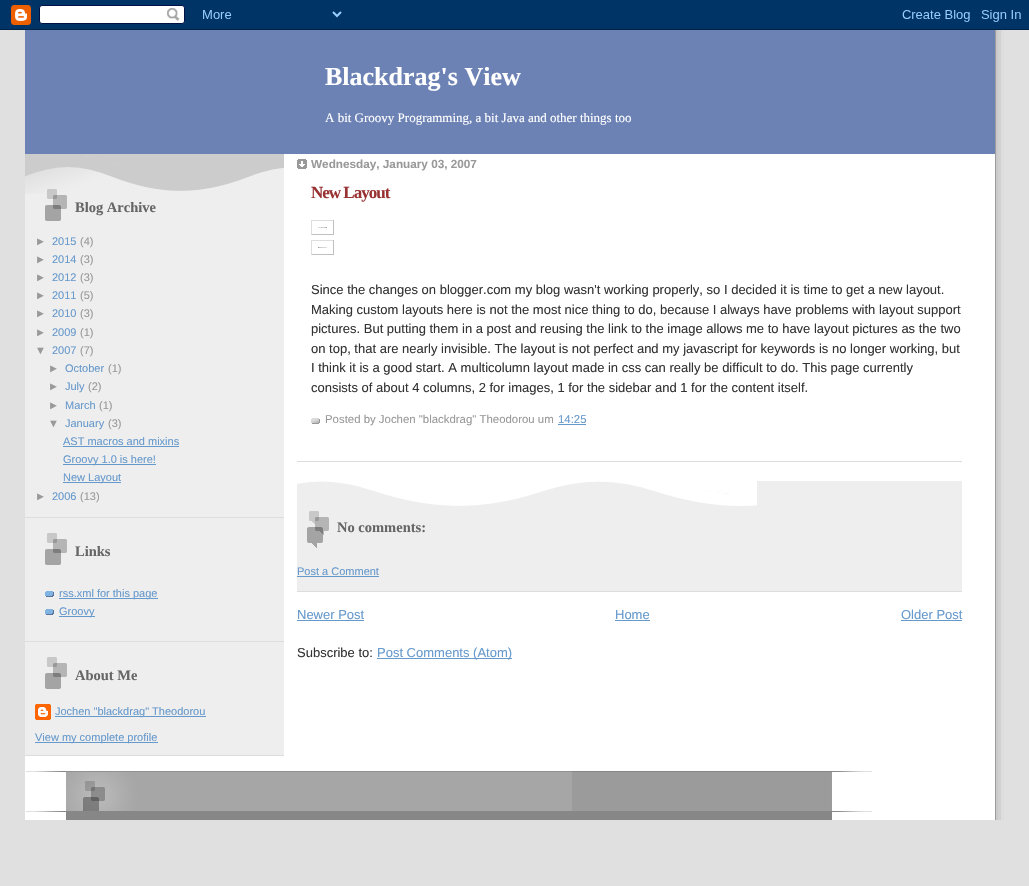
void draw(SkCanvas* c) {
SkPaint p;
p.setAntiAlias(true);
auto F=[&](const char* family, int weight, float size, bool italic = false){SkFontStyle style(weight, SkFontStyle::kNormal_Width,italic ? SkFontStyle::kItalic_Slant : SkFontStyle::kUpright_Slant);SkFont result(fontMgr->matchFamilyStyle(family, style), size);result.setSubpixel(true);return result;};
auto T=[&](const char* s, float x, float y, const SkFont& font){c->drawString(s, x, y, font, p);};
auto L=[&](const char* s, float x, float y, const SkFont& font, const SkPaint& ink, float letter, float word){std::vector<SkGlyphID> glyphs(font.countText(s, strlen(s), SkTextEncoding::kUTF8));std::vector<float> xs(glyphs.size());font.textToGlyphs(s, strlen(s), SkTextEncoding::kUTF8, glyphs);font.getXPos(glyphs, xs, x);float extra = 0;for (size_t i = 0; i < glyphs.size(); i++) {xs[i] += extra;extra += letter + word * (glyphs[i] == font.unicharToGlyph(' '));}c->drawTextBlob(SkTextBlob::MakeFromPosHGlyphs(glyphs, xs, y, font), 0, 0, ink);};
auto R=[&](float x, float y, float w, float h){c->drawRect(SkRect::MakeXYWH(x, y, w, h), p);};
auto I=[&](const char* path, float x, float y, float w, float h){auto image = SkImages::DeferredFromEncodedData(SkData::MakeFromFileName(path));c->drawImageRect(image, SkRect::MakeXYWH(x, y, w, h), SkSamplingOptions());};
c->clear(0xffe0e0e0);
I("1.png",0,0,1029,30);
p.setColor(0xffffffff);
R(25,154,970,666);
I("2.png",995,30,9,790);
p.setColor(0xff6c82b5);
R(25,30,970,124);
auto f1 = F("Liberation Serif",700,26);
p.setColor(0xffffffff);
T("Blackdrag's View",325,85,f1);
auto f2 = F("Liberation Serif",400,13);
T("A bit Groovy Programming, a bit Java and other things too",325,122,f2);
p.setColor(0xffeeeeee);
R(25,168,259,587);
I("3.png",25,154,259,40);
p.setColor(0xffdddddd);
R(25,517,259,1);
I("4.png",45,189,22,32);
auto f3 = F("Liberation Serif",700,14.5);
p.setColor(0xff666666);
T("Blog Archive",75,212,f3);
auto f4 = F("Liberation Sans",400,11);
p.setColor(0xff999999);
T("►",35,245,f4);
p.setColor(0xff6699cc);
T("2015",52,245,f4);
p.setColor(0xff999999);
T("(4)",80,245,f4);
T("►",35,263,f4);
p.setColor(0xff6699cc);
T("2014",52,263,f4);
p.setColor(0xff999999);
T("(3)",80,263,f4);
T("►",35,281,f4);
p.setColor(0xff6699cc);
T("2012",52,281,f4);
p.setColor(0xff999999);
T("(3)",80,281,f4);
T("►",35,299,f4);
p.setColor(0xff6699cc);
T("2011",52,299,f4);
p.setColor(0xff999999);
T("(5)",80,299,f4);
T("►",35,317,f4);
p.setColor(0xff6699cc);
T("2010",52,317,f4);
p.setColor(0xff999999);
T("(3)",80,317,f4);
T("►",35,336,f4);
p.setColor(0xff6699cc);
T("2009",52,336,f4);
p.setColor(0xff999999);
T("(1)",80,336,f4);
T("▼",35,354,f4);
p.setColor(0xff6699cc);
T("2007",52,354,f4);
p.setColor(0xff999999);
T("(7)",80,354,f4);
T("►",48,372,f4);
p.setColor(0xff6699cc);
T("October",65,372,f4);
p.setColor(0xff999999);
T("(1)",108,372,f4);
T("►",48,390,f4);
p.setColor(0xff6699cc);
T("July",65,390,f4);
p.setColor(0xff999999);
T("(2)",88,390,f4);
T("►",48,409,f4);
p.setColor(0xff6699cc);
T("March",65,409,f4);
p.setColor(0xff999999);
T("(1)",99,409,f4);
T("▼",48,427,f4);
p.setColor(0xff6699cc);
T("January",65,427,f4);
p.setColor(0xff999999);
T("(3)",108,427,f4);
p.setColor(0xff6699cc);
T("AST macros and mixins",63,445,f4);
R(63,446,116,1);
R(63,464,93,1);
T("Groovy 1.0 is here!",63,463,f4);
R(63,482,58,1);
T("New Layout",63,481,f4);
p.setColor(0xff999999);
T("►",35,500,f4);
p.setColor(0xff6699cc);
T("2006",52,500,f4);
p.setColor(0xff999999);
T("(13)",80,500,f4);
p.setColor(0xffdddddd);
R(25,641,259,1);
I("5.png",45,533,22,32);
p.setColor(0xff666666);
T("Links",75,556,f3);
I("6.png",45,591,9,6);
p.setColor(0xff6699cc);
R(59,598,99,1);
T("rss.xml for this page",59,597,f4);
I("6.png",45,609,9,6);
R(59,616,36,1);
T("Groovy",59,615,f4);
p.setColor(0xffdddddd);
R(25,755,259,1);
I("5.png",45,657,22,32);
p.setColor(0xff666666);
T("About Me",75,680,f3);
I("7.png",35,704,16,16);
p.setColor(0xff6699cc);
R(55,716,151,1);
T("Jochen \"blackdrag\" Theodorou",55,715,f4);
R(35,742,123,1);
T("View my complete profile",35,741,f4);
I("8.png",297,159,10,10);
auto f5 = F("Liberation Sans",700,11.75);
p.setColor(0xff999999);
T("Wednesday, January 03, 2007",311,168,f5);
p.setColor(0xffdddddd);
R(297,461,665,1);
auto f6 = F("Liberation Serif",700,17);
p.setColor(0xff993333);
L("New Layout",311,198,f6,p,-1,0);
p.setColor(0xffdddddd);
R(311,220,23,1);
p.setColor(0xffc0c0c0);
R(333,220,1,15);
R(311,234,23,1);
p.setColor(0xffdddddd);
R(311,220,1,15);
I("9.png",318,227,9,1);
R(311,240,23,1);
p.setColor(0xffc0c0c0);
R(333,240,1,15);
R(311,254,23,1);
p.setColor(0xffdddddd);
R(311,240,1,15);
I("10.png",318,247,9,1);
auto f7 = F("Liberation Sans",400,13);
p.setColor(0xff333333);
T("Since the changes on blogger.com my blog wasn't working properly, so I decided it is time to get a new layout.",311,294,f7);
T("Making custom layouts here is not the most nice thing to do, because I always have problems with layout support",311,314,f7);
T("pictures. But putting them in a post and reusing the link to the image allows me to have layout pictures as the two",311,333,f7);
T("on top, that are nearly invisible. The layout is not perfect and my javascript for keywords is no longer working, but",311,353,f7);
T("I think it is a good start. A multicolumn layout made in css can really be difficult to do. This page currently",311,372,f7);
T("consists of about 4 columns, 2 for images, 1 for the sidebar and 1 for the content itself.",311,392,f7);
I("11.png",311,418,9,6);
auto f8 = F("Liberation Sans",400,11.4);
p.setColor(0xff999999);
T("Posted by Jochen \"blackdrag\" Theodorou um",325,423,f8);
p.setColor(0xff6699cc);
T("14:25",558,423,f8);
R(558,424,28,1);
p.setColor(0xffeeeeee);
R(297,481,665,110);
I("12.png",297,481,460,25);
I("13.png",307,511,22,37);
p.setColor(0xff666666);
T("No comments:",337,532,f3);
p.setColor(0xffdddddd);
R(297,591,665,1);
p.setColor(0xff6699cc);
T("Post a Comment",297,575,f4);
R(297,576,82,1);
T("Newer Post",297,619,f7);
R(297,620,67,1);
T("Home",615,619,f7);
R(615,620,35,1);
T("Older Post",901,619,f7);
R(901,620,61,1);
p.setColor(0xff333333);
T("Subscribe to:",297,657,f7);
p.setColor(0xff6699cc);
R(377,658,135,1);
T("Post Comments (Atom)",377,657,f7);
I("14.png",26,811,846,9);
I("15.png",26,771,846,40);
}
